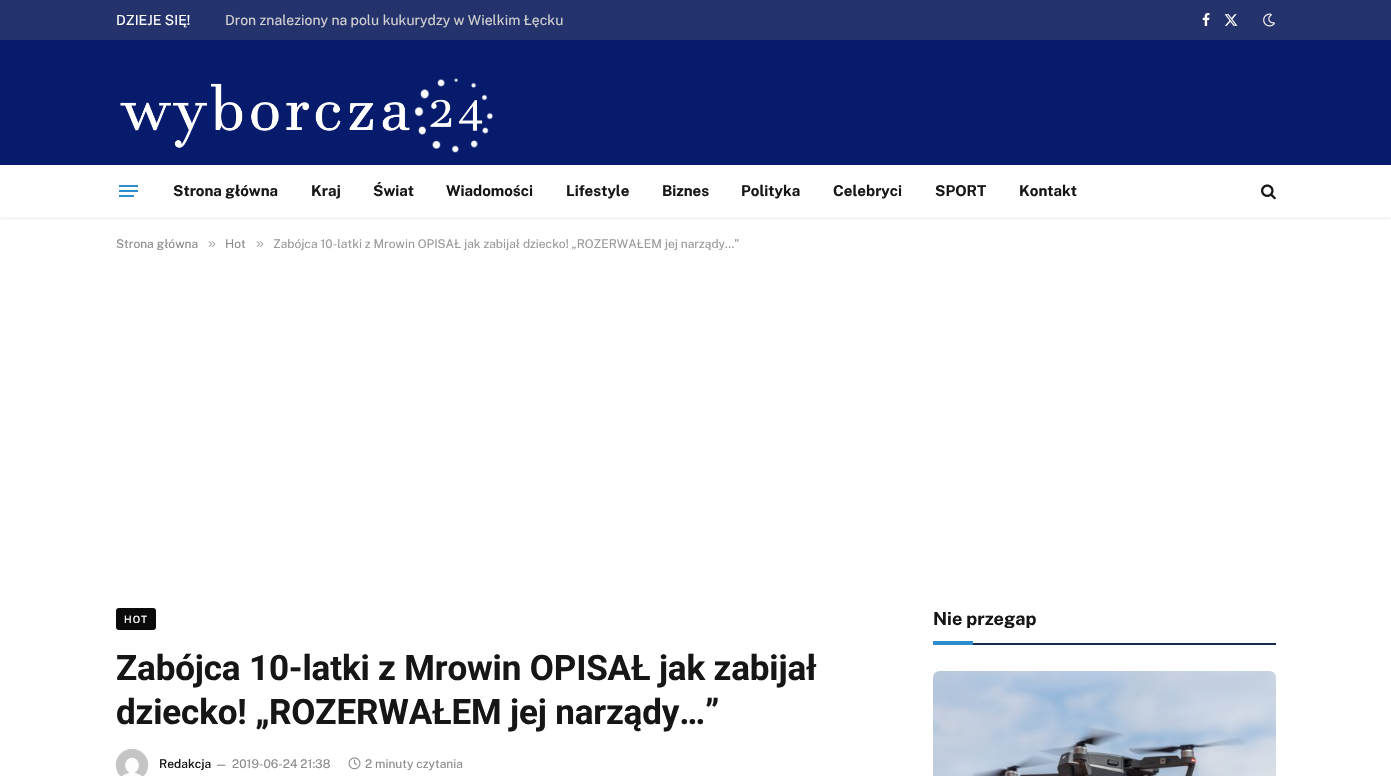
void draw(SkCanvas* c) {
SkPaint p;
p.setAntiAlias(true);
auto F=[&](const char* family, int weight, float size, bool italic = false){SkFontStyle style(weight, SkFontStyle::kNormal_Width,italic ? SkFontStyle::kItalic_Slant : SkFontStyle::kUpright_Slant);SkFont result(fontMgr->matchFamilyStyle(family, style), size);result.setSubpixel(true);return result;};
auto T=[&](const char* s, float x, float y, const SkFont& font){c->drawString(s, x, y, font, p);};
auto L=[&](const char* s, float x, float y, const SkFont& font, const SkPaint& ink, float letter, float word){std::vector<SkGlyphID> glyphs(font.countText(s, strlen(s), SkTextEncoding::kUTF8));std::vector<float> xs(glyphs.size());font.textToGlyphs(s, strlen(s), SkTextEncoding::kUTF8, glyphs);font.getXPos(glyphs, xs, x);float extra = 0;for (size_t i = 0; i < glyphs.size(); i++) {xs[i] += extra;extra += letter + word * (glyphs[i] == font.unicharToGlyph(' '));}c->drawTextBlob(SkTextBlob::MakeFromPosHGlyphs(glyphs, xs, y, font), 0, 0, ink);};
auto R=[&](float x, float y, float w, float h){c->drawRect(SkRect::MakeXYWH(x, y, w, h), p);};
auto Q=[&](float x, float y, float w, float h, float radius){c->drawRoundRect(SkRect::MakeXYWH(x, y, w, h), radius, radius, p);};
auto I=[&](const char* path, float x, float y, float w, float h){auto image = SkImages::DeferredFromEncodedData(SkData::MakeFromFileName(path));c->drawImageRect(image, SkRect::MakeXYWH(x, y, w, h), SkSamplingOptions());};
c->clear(0xffffffff);
c->save();
c->clipRect(SkRect::MakeXYWH(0,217,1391,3));
p.setColor(0x0d000000);
p.setMaskFilter(SkMaskFilter::MakeBlur(kNormal_SkBlurStyle, 2));
c->drawRect(SkRect::MakeXYWH(0,3,1391,217),p);
p.setMaskFilter(nullptr);
c->restore();
p.setColor(0xff25336d);
R(0,0,1391,40);
auto f1 = F("Public Sans",400,14);
p.setColor(0xffffffff);
T("DZIEJE SIĘ!",116,25,f1);
p.setColor(0xffd1d1d1);
T("Dron znaleziony na polu kukurydzy w Wielkim Łęcku",225,25,f1);
I("1.png",1202,13,8,13);
I("2.png",1224,14,14,12);
I("3.png",1263,13,12,14);
p.setColor(0xff071b6d);
R(0,40,1391,125);
I("4.png",120,78,373,75);
p.setColor(0xff2e8dcc);
R(119,195,15,2);
R(119,185,19,2);
R(119,190,19,2);
auto f2 = F("Public Sans",700,15);
p.setColor(0xff161616);
T("Strona główna",173,196,f2);
T("Kraj",311,196,f2);
T("Świat",373,196,f2);
T("Wiadomości",446,196,f2);
T("Lifestyle",566,196,f2);
T("Biznes",662,196,f2);
T("Polityka",741,196,f2);
T("Celebryci",833,196,f2);
T("SPORT",935,196,f2);
T("Kontakt",1019,196,f2);
I("5.png",1261,184,15,16);
auto f3 = F("Public Sans",400,12);
p.setColor(0xff8a8a8a);
T("Strona główna",116,248,f3);
auto f4 = F("Liberation Sans",400,14);
p.setColor(0xffadadad);
T("»",208,248,f4);
p.setColor(0xff8a8a8a);
T("Hot",225,248,f3);
p.setColor(0xffadadad);
T("»",256,248,f4);
p.setColor(0xff999999);
T("Zabójca 10-latki z Mrowin OPISAŁ jak zabijał dziecko! „ROZERWAŁEM jej narządy…”",273,248,f3);
p.setColor(0xff0a0a0a);
Q(116,608,40,22,3);
auto f5 = F("Public Sans",500,10);
p.setColor(0xffffffff);
L("HOT",124,623,f5,p,1,0);
auto f6 = F("Roboto",700,35);
p.setColor(0xff161616);
L("Zabójca 10-latki z Mrowin OPISAŁ jak zabijał",116,680,f6,p,-.15,0);
L("dziecko! „ROZERWAŁEM jej narządy…”",116,724,f6,p,-.15,0);
p.setColor(0x33000000);
p.setMaskFilter(SkMaskFilter::MakeBlur(kNormal_SkBlurStyle, .5));
c->drawRoundRect(SkRect::MakeXYWH(116,749,32,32),16,16,p);
p.setMaskFilter(nullptr);
I("6.png",116,749,32,27);
auto f7 = F("Public Sans",500,12);
p.setColor(0xff161616);
T("Redakcja",159,768,f7);
auto f8 = F("Public Sans",400,11);
p.setColor(0xff8a8a8a);
T("—",215,768,f8);
T("2019-06-24 21:38",232,768,f3);
I("7.png",348,757,13,13);
T("2 minuty czytania",365,768,f3);
p.setColor(0xff152b4b);
R(973,643,303,2);
auto f9 = F("Public Sans",700,18);
p.setColor(0xff161616);
T("Nie przegap",933,625,f9);
p.setColor(0xff2e8dcc);
R(933,641,40,4);
I("8.png",933,671,343,105);
}
